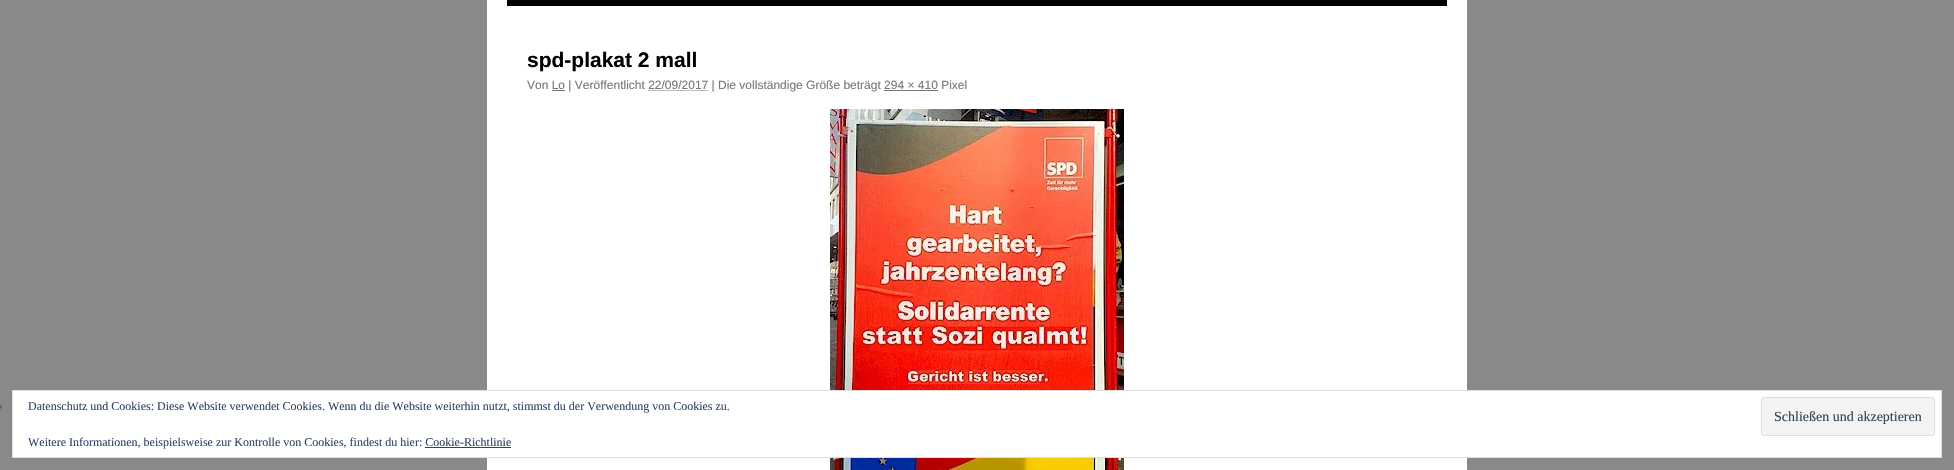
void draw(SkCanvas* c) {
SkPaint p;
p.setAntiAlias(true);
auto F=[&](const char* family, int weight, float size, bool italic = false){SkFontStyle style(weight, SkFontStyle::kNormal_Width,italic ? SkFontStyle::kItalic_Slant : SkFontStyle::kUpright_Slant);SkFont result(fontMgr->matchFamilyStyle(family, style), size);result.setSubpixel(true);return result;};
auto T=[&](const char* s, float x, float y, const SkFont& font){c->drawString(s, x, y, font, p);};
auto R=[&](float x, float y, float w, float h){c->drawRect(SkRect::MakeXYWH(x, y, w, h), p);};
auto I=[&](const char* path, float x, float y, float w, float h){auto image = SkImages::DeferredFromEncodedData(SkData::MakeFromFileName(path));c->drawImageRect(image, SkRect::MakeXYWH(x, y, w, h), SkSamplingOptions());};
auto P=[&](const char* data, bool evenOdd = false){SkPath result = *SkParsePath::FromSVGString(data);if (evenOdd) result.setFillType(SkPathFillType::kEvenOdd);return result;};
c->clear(0xff898989);
p.setColor(0xffffffff);
R(487,0,980,470);
p.setColor(0xff000000);
R(507,0,940,6);
auto f1 = F("Liberation Sans",700,21);
T("spd-plakat 2 mall",527,67,f1);
auto f2 = F("Liberation Sans",400,12);
p.setColor(0xff777777);
T("Von Lo | Veröffentlicht 22/09/2017 | Die vollständige Größe beträgt 294 × 410 Pixel",527,89,f2);
R(552,90,13,1);
p.setStroke(true);
p.setStrokeWidth(1);
p.setPathEffect(SkDashPathEffect::Make({{1,1}}, 0));
c->drawPath(P("M648.5 90.5h60"),p);
p.setPathEffect(nullptr);
p.setStroke(false);
R(884,90,54,1);
I("1.png",830,109,294,361);
p.setColor(0xff666666);
c->drawCircle(0,407,2,p);
p.setColor(0xffffffff);
c->drawRect(SkRect::MakeXYWH(12.5,390.5,1929,67),p);
p.setStroke(true);
p.setColor(0xffdedede);
c->drawRect(SkRect::MakeXYWH(12.5,390.5,1929,67),p);
auto f3 = F("Liberation Serif",400,12);
p.setStroke(false);
p.setColor(0xff2e4467);
T("Datenschutz und Cookies: Diese Website verwendet Cookies. Wenn du die Website weiterhin nutzt, stimmst du der Verwendung von Cookies zu.",28,410,f3);
p.setColor(0xfff3f3f3);
c->drawRoundRect(SkRect::MakeXYWH(1761.5,397.5,173,38),2.5,2.5,p);
p.setStroke(true);
p.setColor(0xffdedede);
c->drawRoundRect(SkRect::MakeXYWH(1761.5,397.5,173,38),2.5,2.5,p);
auto f4 = F("Liberation Serif",400,14);
p.setStroke(false);
p.setColor(0xff2e4453);
T("Schließen und akzeptieren",1774,421,f4);
p.setColor(0xff2e4467);
T("Weitere Informationen, beispielsweise zur Kontrolle von Cookies, findest du hier: Cookie-Richtlinie",28,446,f3);
R(425,447,86,1);
}
